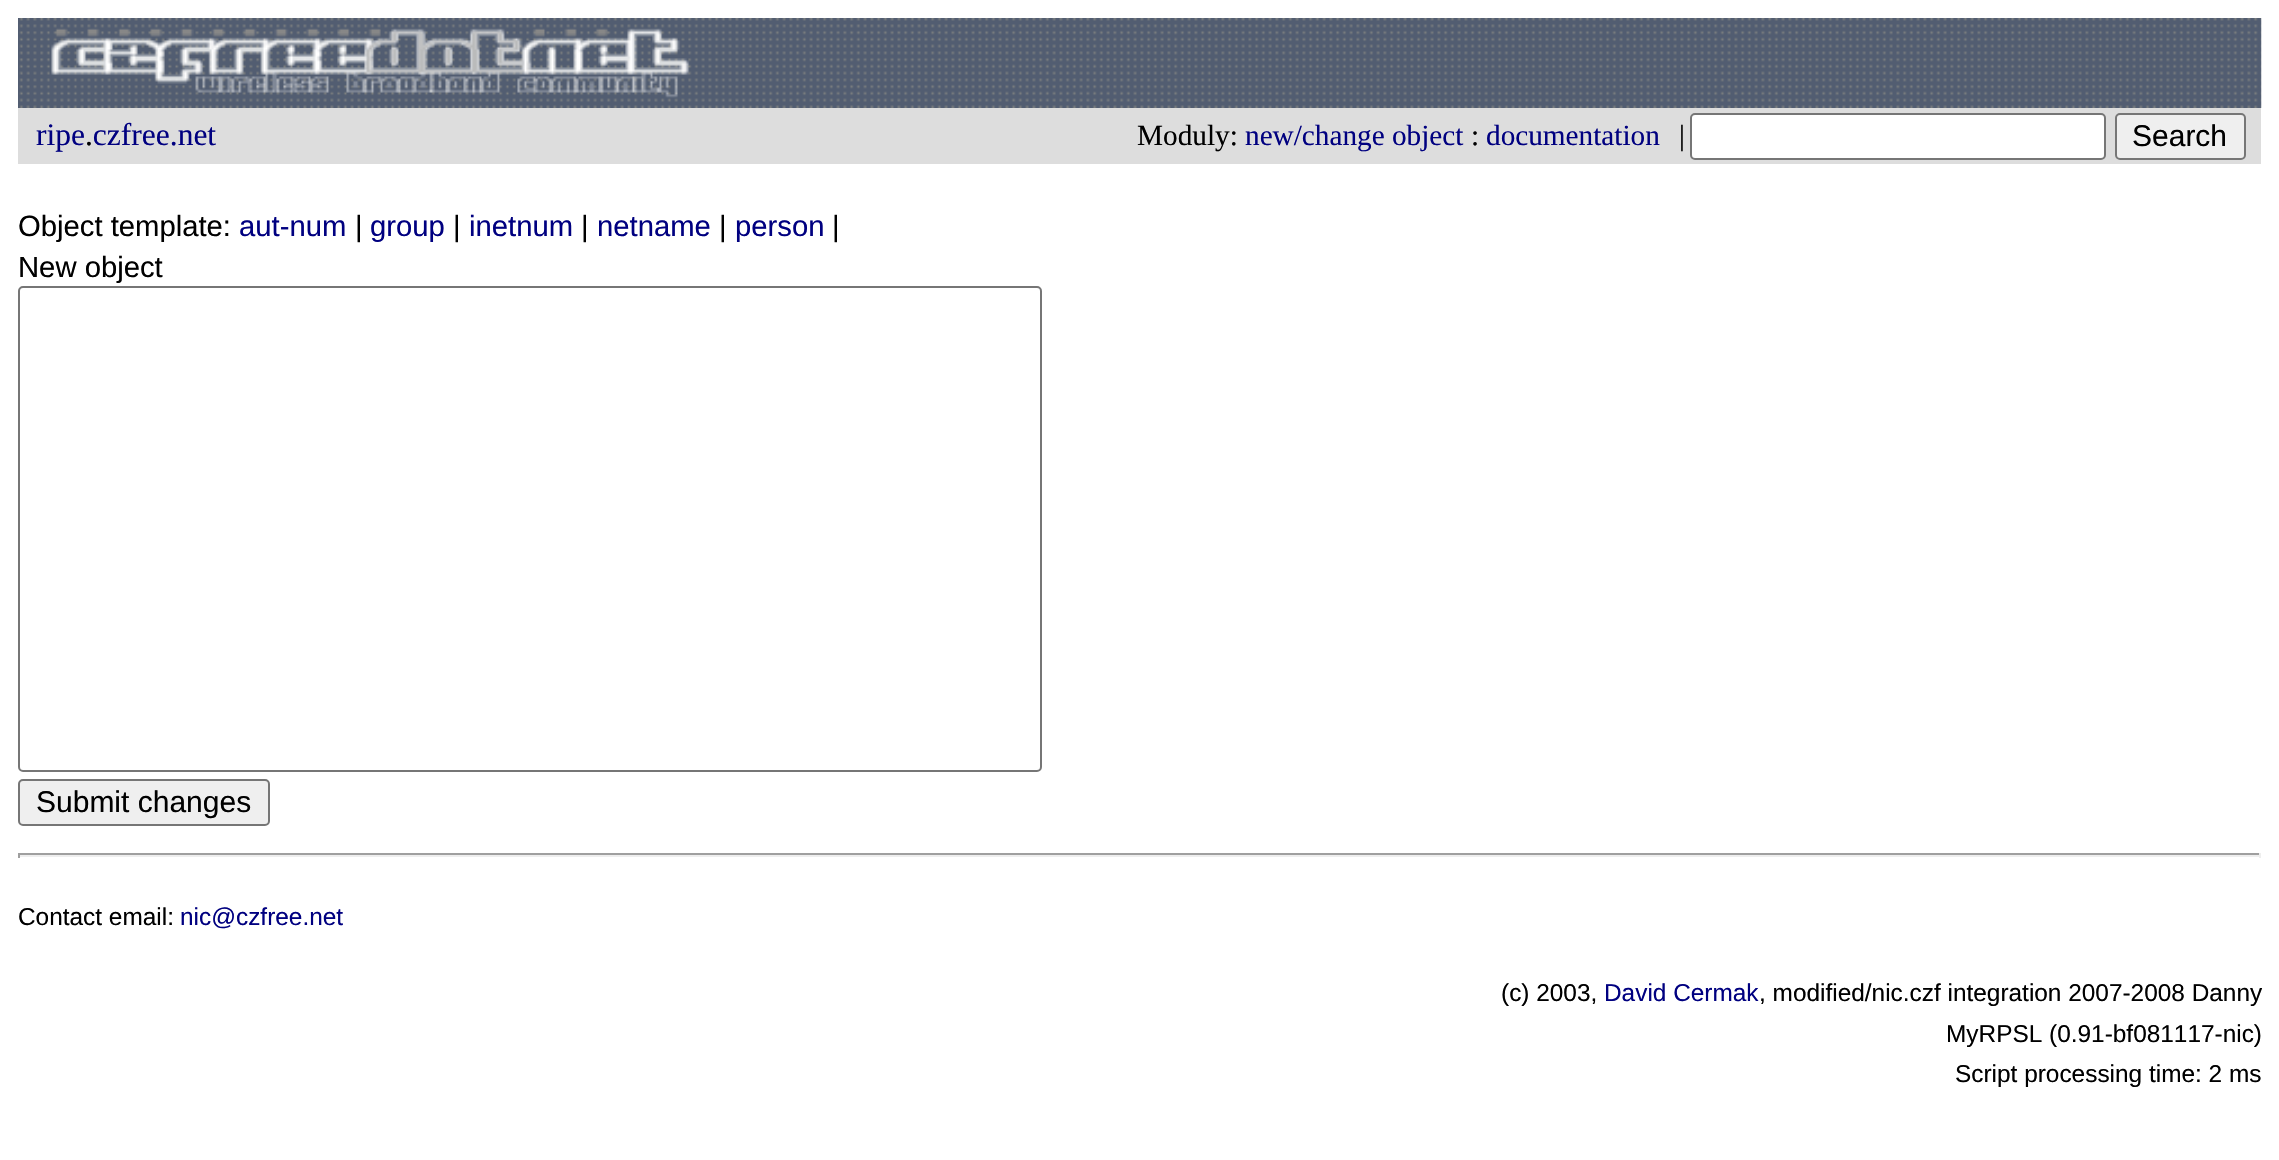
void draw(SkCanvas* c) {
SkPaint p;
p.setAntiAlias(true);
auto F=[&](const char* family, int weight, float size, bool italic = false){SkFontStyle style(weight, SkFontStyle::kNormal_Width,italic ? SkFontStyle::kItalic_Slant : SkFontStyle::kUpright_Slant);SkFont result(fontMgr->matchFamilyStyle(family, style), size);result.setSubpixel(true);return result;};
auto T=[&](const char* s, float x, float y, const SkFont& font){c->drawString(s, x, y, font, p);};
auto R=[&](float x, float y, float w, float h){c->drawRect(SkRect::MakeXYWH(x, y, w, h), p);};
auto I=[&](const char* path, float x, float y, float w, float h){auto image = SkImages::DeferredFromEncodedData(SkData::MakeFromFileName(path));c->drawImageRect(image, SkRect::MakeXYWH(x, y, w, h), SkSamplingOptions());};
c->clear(0xffffffff);
p.setColor(0xff525d71);
R(18,18,1,90);
I("1.png",19,18,2243,90);
I("2.png",21,28,669,70);
p.setColor(0xffdddddd);
R(18,108,2243,56);
auto f1 = F("Liberation Serif",400,31.5);
p.setColor(0xff000080);
T("ripe czfree.net",36,145,f1);
p.setColor(0xff000000);
T(".",85,145,f1);
auto f2 = F("Liberation Serif",400,29.25);
T("Moduly:",1137,145,f2);
p.setColor(0xff000080);
T("new/change object",1245,145,f2);
p.setColor(0xff000000);
T(":",1471,145,f2);
p.setColor(0xff000080);
T("documentation",1486,145,f2);
p.setColor(0xff000000);
T("|",1679,145,f2);
p.setColor(0xffffffff);
c->drawRoundRect(SkRect::MakeXYWH(1691,114,414,45),4,4,p);
p.setStroke(true);
p.setStrokeWidth(2);
p.setColor(0xff767676);
c->drawRoundRect(SkRect::MakeXYWH(1691,114,414,45),4,4,p);
p.setStroke(false);
p.setColor(0xffefefef);
c->drawRoundRect(SkRect::MakeXYWH(2116,114,129,45),4,4,p);
p.setStroke(true);
p.setColor(0xff767676);
c->drawRoundRect(SkRect::MakeXYWH(2116,114,129,45),4,4,p);
auto f3 = F("Liberation Sans",400,30);
p.setStroke(false);
p.setColor(0xff000000);
T("Search",2132,146,f3);
auto f4 = F("Liberation Sans",400,29.25);
T("Object template:",18,236,f4);
p.setColor(0xff000080);
T("aut-num",239,236,f4);
p.setColor(0xff000000);
T("|",355,236,f4);
p.setColor(0xff000080);
T("group",370,236,f4);
p.setColor(0xff000000);
T("|",453,236,f4);
p.setColor(0xff000080);
T("inetnum",469,236,f4);
p.setColor(0xff000000);
T("|",581,236,f4);
p.setColor(0xff000080);
T("netname",597,236,f4);
p.setColor(0xff000000);
T("|",719,236,f4);
p.setColor(0xff000080);
T("person",735,236,f4);
p.setColor(0xff000000);
T("|",832,236,f4);
T("New object",18,277,f4);
p.setStroke(true);
p.setColor(0xff767676);
c->drawRoundRect(SkRect::MakeXYWH(19,287,1022,484),4,4,p);
p.setStroke(false);
p.setColor(0xffefefef);
c->drawRoundRect(SkRect::MakeXYWH(19,780,250,45),4,4,p);
p.setStroke(true);
p.setColor(0xff767676);
c->drawRoundRect(SkRect::MakeXYWH(19,780,250,45),4,4,p);
p.setStroke(false);
p.setColor(0xff000000);
T("Submit changes",36,812,f3);
p.setColor(0xff9f9f9f);
R(18,853,2243,2);
p.setColor(0xffeeeeee);
R(2259,853,2,5);
R(18,855,2243,2);
p.setColor(0xff9f9f9f);
R(18,853,2,5);
auto f5 = F("Liberation Sans",400,24.4);
p.setColor(0xff000000);
T("Contact email:",18,925,f5);
p.setColor(0xff000080);
T("nic@czfree.net",180,925,f5);
p.setColor(0xff000000);
T("(c) 2003,",1501,1001,f5);
p.setColor(0xff000080);
T("David Cermak",1604,1001,f5);
p.setColor(0xff000000);
T(", modified/nic.czf integration 2007-2008 Danny",1759,1001,f5);
T("MyRPSL (0.91-bf081117-nic)",1946,1042,f5);
T("Script processing time: 2 ms",1955,1082,f5);
}
